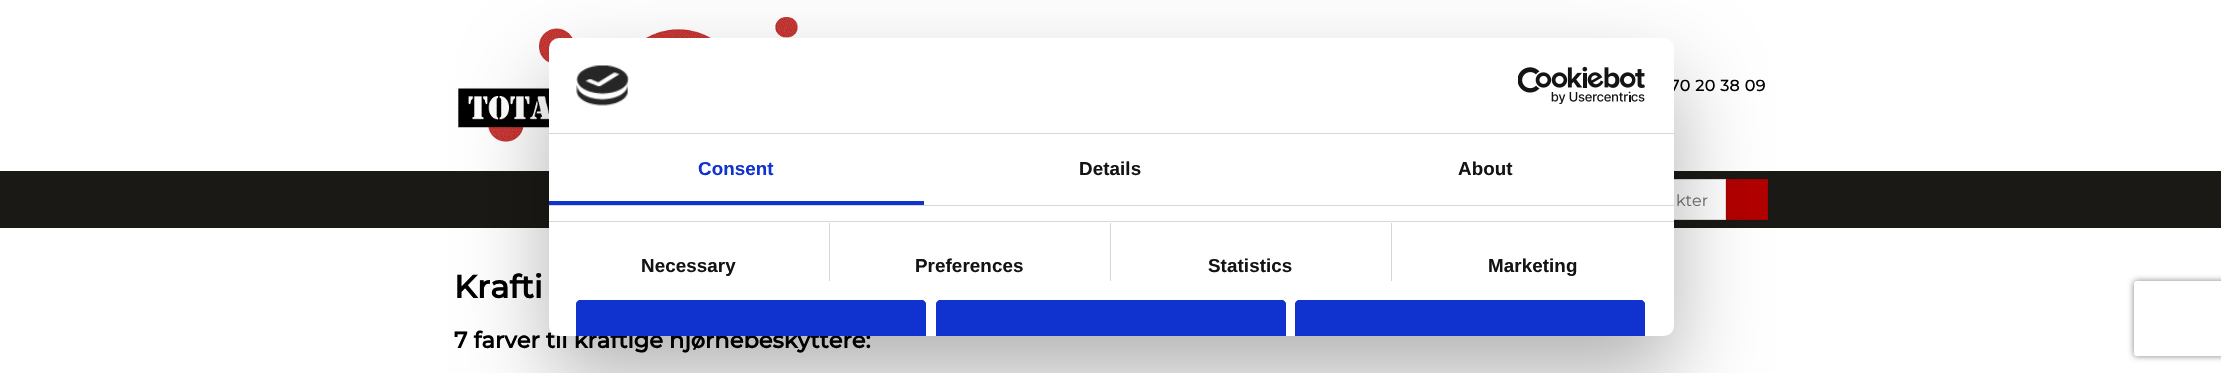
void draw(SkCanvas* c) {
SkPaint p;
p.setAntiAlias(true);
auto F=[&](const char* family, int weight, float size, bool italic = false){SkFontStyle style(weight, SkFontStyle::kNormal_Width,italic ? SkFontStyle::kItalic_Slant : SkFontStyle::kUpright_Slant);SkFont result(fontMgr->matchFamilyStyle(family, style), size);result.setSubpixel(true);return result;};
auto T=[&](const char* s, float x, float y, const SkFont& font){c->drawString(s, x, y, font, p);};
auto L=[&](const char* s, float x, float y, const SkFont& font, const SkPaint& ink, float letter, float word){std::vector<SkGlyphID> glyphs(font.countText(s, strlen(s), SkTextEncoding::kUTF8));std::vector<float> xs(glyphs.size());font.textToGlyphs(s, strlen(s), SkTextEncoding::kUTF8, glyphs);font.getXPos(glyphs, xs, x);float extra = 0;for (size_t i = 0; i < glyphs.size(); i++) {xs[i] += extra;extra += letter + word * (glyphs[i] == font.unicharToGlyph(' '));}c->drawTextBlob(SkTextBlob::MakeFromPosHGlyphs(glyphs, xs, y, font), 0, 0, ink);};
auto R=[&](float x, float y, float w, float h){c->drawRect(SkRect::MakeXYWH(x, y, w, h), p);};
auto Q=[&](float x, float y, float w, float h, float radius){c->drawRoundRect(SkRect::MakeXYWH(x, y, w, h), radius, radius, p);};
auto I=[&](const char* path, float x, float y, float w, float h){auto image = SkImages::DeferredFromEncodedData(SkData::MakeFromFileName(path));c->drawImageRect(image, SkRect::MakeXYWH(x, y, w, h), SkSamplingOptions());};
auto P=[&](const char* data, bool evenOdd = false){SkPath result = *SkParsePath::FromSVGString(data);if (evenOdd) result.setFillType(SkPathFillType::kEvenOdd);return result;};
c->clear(0xffffffff);
I("1.png",458,17,364,139);
auto f1 = F("Montserrat",500,16);
p.setColor(0xff000000);
L("70 20 38 09",1670,91,f1,p,.25,0);
p.setColor(0xff1a1915);
R(0,171,2221,57);
p.setColor(0xff1c1b18);
R(455,171,1313,1);
p.setColor(0xffffffff);
R(1674,180,51,39);
p.setStroke(true);
p.setStrokeWidth(1);
p.setColor(0xffdddddd);
c->drawRect(SkRect::MakeXYWH(1575.5,179.5,150,40),p);
auto f2 = F("Montserrat",400,16);
p.setStroke(false);
p.setColor(0xff757575);
T("kter",1676,206,f2);
p.setColor(0xffb20000);
c->drawRect(SkRect::MakeXYWH(1726.5,179.5,41,40),p);
p.setStroke(true);
p.setColor(0xffa90000);
c->drawRect(SkRect::MakeXYWH(1726.5,179.5,41,40),p);
auto f3 = F("Montserrat",700,32);
p.setStroke(false);
p.setColor(0xff000000);
T("Krafti",454,298,f3);
auto f4 = F("Montserrat",700,22.5);
T("7 farver til kraftige hjørnebeskyttere:",454,348,f4);
p.setColor(0x4d000000);
p.setMaskFilter(SkMaskFilter::MakeBlur(kNormal_SkBlurStyle, 42.5));
c->drawRoundRect(SkRect::MakeXYWH(549,78,1125,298),10,10,p);
p.setMaskFilter(nullptr);
p.setColor(0xffffffff);
Q(549,38,1125,298,10);
p.setColor(0xffd6d6d6);
R(549,133,1125,1);
I("2.png",576,65,53,41);
I("3.png",1518,66,127,38);
R(549,205,1125,1);
p.setColor(0xff1032cf);
R(549,201,375,4);
auto f5 = F("Liberation Sans",700,18.75);
L("Consent",698,175,f5,p,.1,0);
p.setColor(0xff141414);
L("Details",1079,175,f5,p,.1,0);
L("About",1458,175,f5,p,.1,0);
p.setColor(0xffd6d6d6);
R(549,221,1125,1);
R(829,223,1,58);
p.setColor(0xff141414);
L("Necessary",641,272,f5,p,.1,0);
p.setColor(0xffd6d6d6);
R(1110,223,1,58);
p.setColor(0xff141414);
L("Preferences",915,272,f5,p,.1,0);
p.setColor(0xffd6d6d6);
R(1391,223,1,58);
p.setColor(0xff141414);
L("Statistics",1208,272,f5,p,.1,0);
L("Marketing",1488,272,f5,p,.1,0);
p.setColor(0xff1032cf);
c->drawPath(P("M581 300h340c3 0 5 2 5 5v31h-350v-31c0-3 2-5 5-5z"),p);
c->drawPath(P("M581 300c-3 0-5 2-5 5v31h3v-31c0-1 1-2 2-2h340c1 0 2 1 2 2v31h3v-31c0-3-2-5-5-5z"),p);
c->drawPath(P("M941 300h340c3 0 5 2 5 5v31h-350v-31c0-3 2-5 5-5z"),p);
c->drawPath(P("M941 300c-3 0-5 2-5 5v31h3v-31c0-1 1-2 2-2h340c1 0 2 1 2 2v31h3v-31c0-3-2-5-5-5z"),p);
c->drawPath(P("M1300 300h340c3 0 5 2 5 5v31h-350v-31c0-3 2-5 5-5z"),p);
c->drawPath(P("M1300 300c-3 0-5 2-5 5v31h3v-31c0-1 1-2 2-2h340c1 0 2 1 2 2v31h3v-31c0-3-2-5-5-5z"),p);
c->save();
c->clipPath(P("M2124 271h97v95h-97zm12.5 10h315c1.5 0 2.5 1 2.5 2.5v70c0 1.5-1 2.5-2.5 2.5h-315c-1.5 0-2.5-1-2.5-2.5v-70c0-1.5 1-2.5 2.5-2.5z",true),true);
p.setColor(0xff808080);
p.setMaskFilter(SkMaskFilter::MakeBlur(kNormal_SkBlurStyle, 3));
c->drawRoundRect(SkRect::MakeXYWH(2134,281,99,75),2.5,2.5,p);
p.setMaskFilter(nullptr);
c->restore();
}
